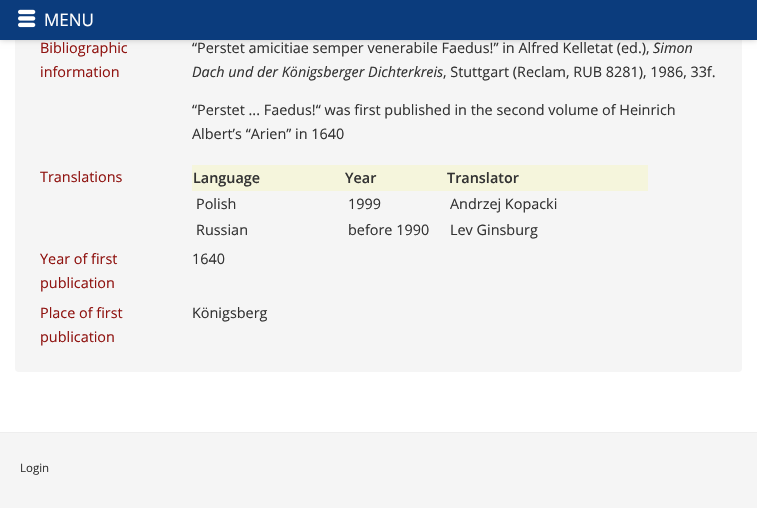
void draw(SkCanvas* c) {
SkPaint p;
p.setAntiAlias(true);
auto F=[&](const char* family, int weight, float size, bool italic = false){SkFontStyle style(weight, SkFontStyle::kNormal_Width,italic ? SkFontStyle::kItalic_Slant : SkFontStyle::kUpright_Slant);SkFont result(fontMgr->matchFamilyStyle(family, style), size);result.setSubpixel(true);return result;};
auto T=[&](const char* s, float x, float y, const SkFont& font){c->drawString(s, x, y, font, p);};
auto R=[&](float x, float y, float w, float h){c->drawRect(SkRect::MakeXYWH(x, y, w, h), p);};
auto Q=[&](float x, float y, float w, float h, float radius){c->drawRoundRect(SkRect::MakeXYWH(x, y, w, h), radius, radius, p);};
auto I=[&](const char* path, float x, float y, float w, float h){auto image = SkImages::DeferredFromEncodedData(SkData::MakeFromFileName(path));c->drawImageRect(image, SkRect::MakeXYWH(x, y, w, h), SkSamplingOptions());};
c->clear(0xffffffff);
p.setColor(0xfff5f5f5);
Q(15,-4,727,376,4);
p.setColor(0x33000000);
p.setMaskFilter(SkMaskFilter::MakeBlur(kNormal_SkBlurStyle, 3));
c->drawRect(SkRect::MakeXYWH(0,0,757,40),p);
p.setMaskFilter(nullptr);
p.setColor(0xff0b3c7d);
R(0,0,757,40);
I("1.png",18,9,18,19);
auto f1 = F("Open Sans",400,17);
p.setColor(0xffffffff);
T("MENU",44,26,f1);
auto f2 = F("Open Sans",400,14.4);
p.setColor(0xff901411);
T("Bibliographic",40,53,f2);
T("information",40,77,f2);
p.setColor(0xff333333);
T("“Perstet amicitiae semper venerabile Faedus!” in Alfred Kelletat (ed.),",192,53,f2);
auto f3 = F("Open Sans",400,14.4,true);
T("Simon",653,53,f3);
T("Dach und der Königsberger Dichterkreis",192,77,f3);
T(", Stuttgart (Reclam, RUB 8281), 1986, 33f.",443,77,f2);
T("“Perstet ... Faedus!“ was first published in the second volume of Heinrich",192,115,f2);
T("Albert’s “Arien” in 1640",192,139,f2);
p.setColor(0xff901411);
T("Translations",40,182,f2);
p.setColor(0xfff5f5dc);
R(192,165,456,26);
auto f4 = F("Open Sans",600,14.4);
p.setColor(0xff333333);
T("Language",193,183,f4);
T("Year",345,183,f4);
T("Translator",447,183,f4);
T("Polish",196,209,f2);
T("1999",348,209,f2);
T("Andrzej Kopacki",450,209,f2);
T("Russian",196,235,f2);
T("before 1990",348,235,f2);
T("Lev Ginsburg",450,235,f2);
p.setColor(0xff901411);
T("Year of first",40,264,f2);
T("publication",40,288,f2);
p.setColor(0xff333333);
T("1640",192,264,f2);
p.setColor(0xff901411);
T("Place of first",40,318,f2);
T("publication",40,342,f2);
p.setColor(0xff333333);
T("Königsberg",192,318,f2);
p.setColor(0xfff5f5f5);
R(0,433,757,75);
p.setColor(0xffeeeeee);
R(0,432,757,1);
auto f5 = F("Open Sans",400,11.5);
p.setColor(0xff333333);
T("Login",20,472,f5);
}
